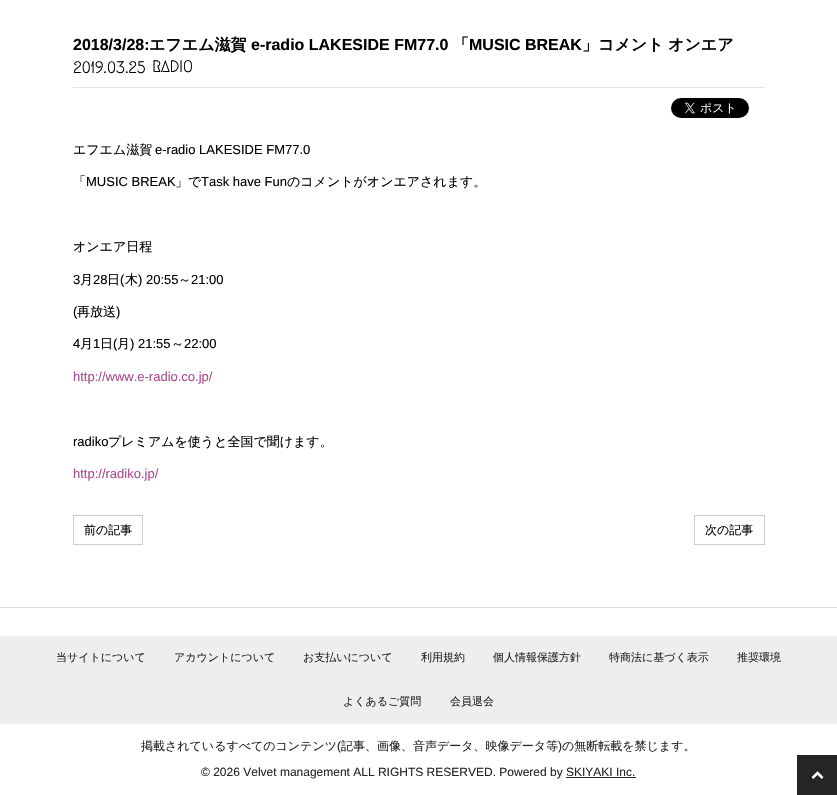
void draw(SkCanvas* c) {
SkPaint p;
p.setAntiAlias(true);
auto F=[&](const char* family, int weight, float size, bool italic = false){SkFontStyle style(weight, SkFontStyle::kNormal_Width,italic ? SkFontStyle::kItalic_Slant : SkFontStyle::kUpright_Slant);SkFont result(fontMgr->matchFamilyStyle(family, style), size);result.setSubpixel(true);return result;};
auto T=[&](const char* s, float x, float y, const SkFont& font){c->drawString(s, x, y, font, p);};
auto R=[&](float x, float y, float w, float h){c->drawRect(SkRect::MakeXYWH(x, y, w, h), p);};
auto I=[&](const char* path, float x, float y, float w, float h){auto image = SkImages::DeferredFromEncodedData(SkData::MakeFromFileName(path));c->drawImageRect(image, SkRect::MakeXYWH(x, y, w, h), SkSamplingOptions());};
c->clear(0xffffffff);
auto f1 = F("Liberation Sans",700,16);
p.setColor(0xff010101);
T("2018/3/28:",73,50,f1);
auto f2 = F("WenQuanYi Zen Hei",700,16);
T("エフエム滋賀",149,50,f2);
T("e-radio LAKESIDE FM77.0",251,50,f1);
T("「",453,50,f2);
T("MUSIC BREAK",469,50,f1);
T("」コメント",582,50,f2);
T("オンエア",668,50,f2);
auto f3 = F("Megrim",700,16);
T("2019.03.25",73,73,f3);
T("RADIO",152,72,f3);
p.setColor(0xffeedce8);
R(73,87,692,1);
I("1.png",671,98,78,20);
auto f4 = F("WenQuanYi Zen Hei",500,13);
p.setColor(0xff010101);
T("エフエム滋賀",73,154,f4);
auto f5 = F("Liberation Sans",400,13);
T("e-radio LAKESIDE FM77.0",155,154,f5);
T("「",73,186,f4);
T("MUSIC BREAK",86,186,f5);
T("」で",175,186,f4);
T("Task have Fun",201,186,f5);
T("のコメントがオンエアされます。",287,186,f4);
T("オンエア日程",73,251,f4);
T("3",73,284,f5);
T("月",80,284,f4);
T("28",93,284,f5);
T("日",107,284,f4);
T("(",120,284,f5);
T("木",125,284,f4);
T(") 20:55",138,284,f5);
T("～",178,284,f4);
T("21:00",191,284,f5);
T("(",73,316,f5);
T("再放送",77,316,f4);
T(")",116,316,f5);
T("4",73,348,f5);
T("月",80,348,f4);
T("1",93,348,f5);
T("日",100,348,f4);
T("(",113,348,f5);
T("月",117,348,f4);
T(") 21:55",130,348,f5);
T("～",171,348,f4);
T("22:00",184,348,f5);
p.setColor(0xffad4a8d);
T("http://www.e-radio.co.jp/",73,381,f5);
p.setColor(0xff010101);
T("radiko",73,446,f5);
T("プレミアムを使うと全国で聞けます。",108,446,f4);
p.setColor(0xffad4a8d);
T("http://radiko.jp/",73,478,f5);
p.setStroke(true);
p.setStrokeWidth(1);
p.setColor(0xffcccccc);
c->drawRect(SkRect::MakeXYWH(73.5,515.5,69,29),p);
auto f6 = F("WenQuanYi Zen Hei",500,12);
p.setStroke(false);
p.setColor(0xff010101);
T("前の記事",84,534,f6);
p.setStroke(true);
p.setColor(0xffcccccc);
c->drawRect(SkRect::MakeXYWH(694.5,515.5,70,29),p);
p.setStroke(false);
p.setColor(0xff010101);
T("次の記事",705,534,f6);
p.setColor(0xffdddbde);
R(0,607,837,1);
p.setColor(0xffeeeeee);
R(0,636,837,88);
auto f7 = F("WenQuanYi Zen Hei",500,11);
p.setColor(0xff252525);
T("当サイトについて",56,661,f7);
T("アカウントについて",174,661,f7);
T("お支払いについて",303,661,f7);
T("利用規約",421,661,f7);
T("個人情報保護方針",493,661,f7);
T("特商法に基づく表示",609,661,f7);
T("推奨環境",737,661,f7);
T("よくあるご質問",343,705,f7);
T("会員退会",450,705,f7);
T("掲載されているすべてのコンテンツ",141,750,f6);
auto f8 = F("Liberation Sans",400,12);
T("(",337,750,f8);
T("記事、画像、音声データ、映像データ等",341,750,f6);
T(")",558,750,f8);
T("の無断転載を禁じます。",562,750,f6);
T("© 2026 Velvet management ALL RIGHTS RESERVED. Powered by SKIYAKI Inc.",201,776,f8);
R(566,777,70,1);
R(797,755,40,40);
I("2.png",811,771,13,8);
}
